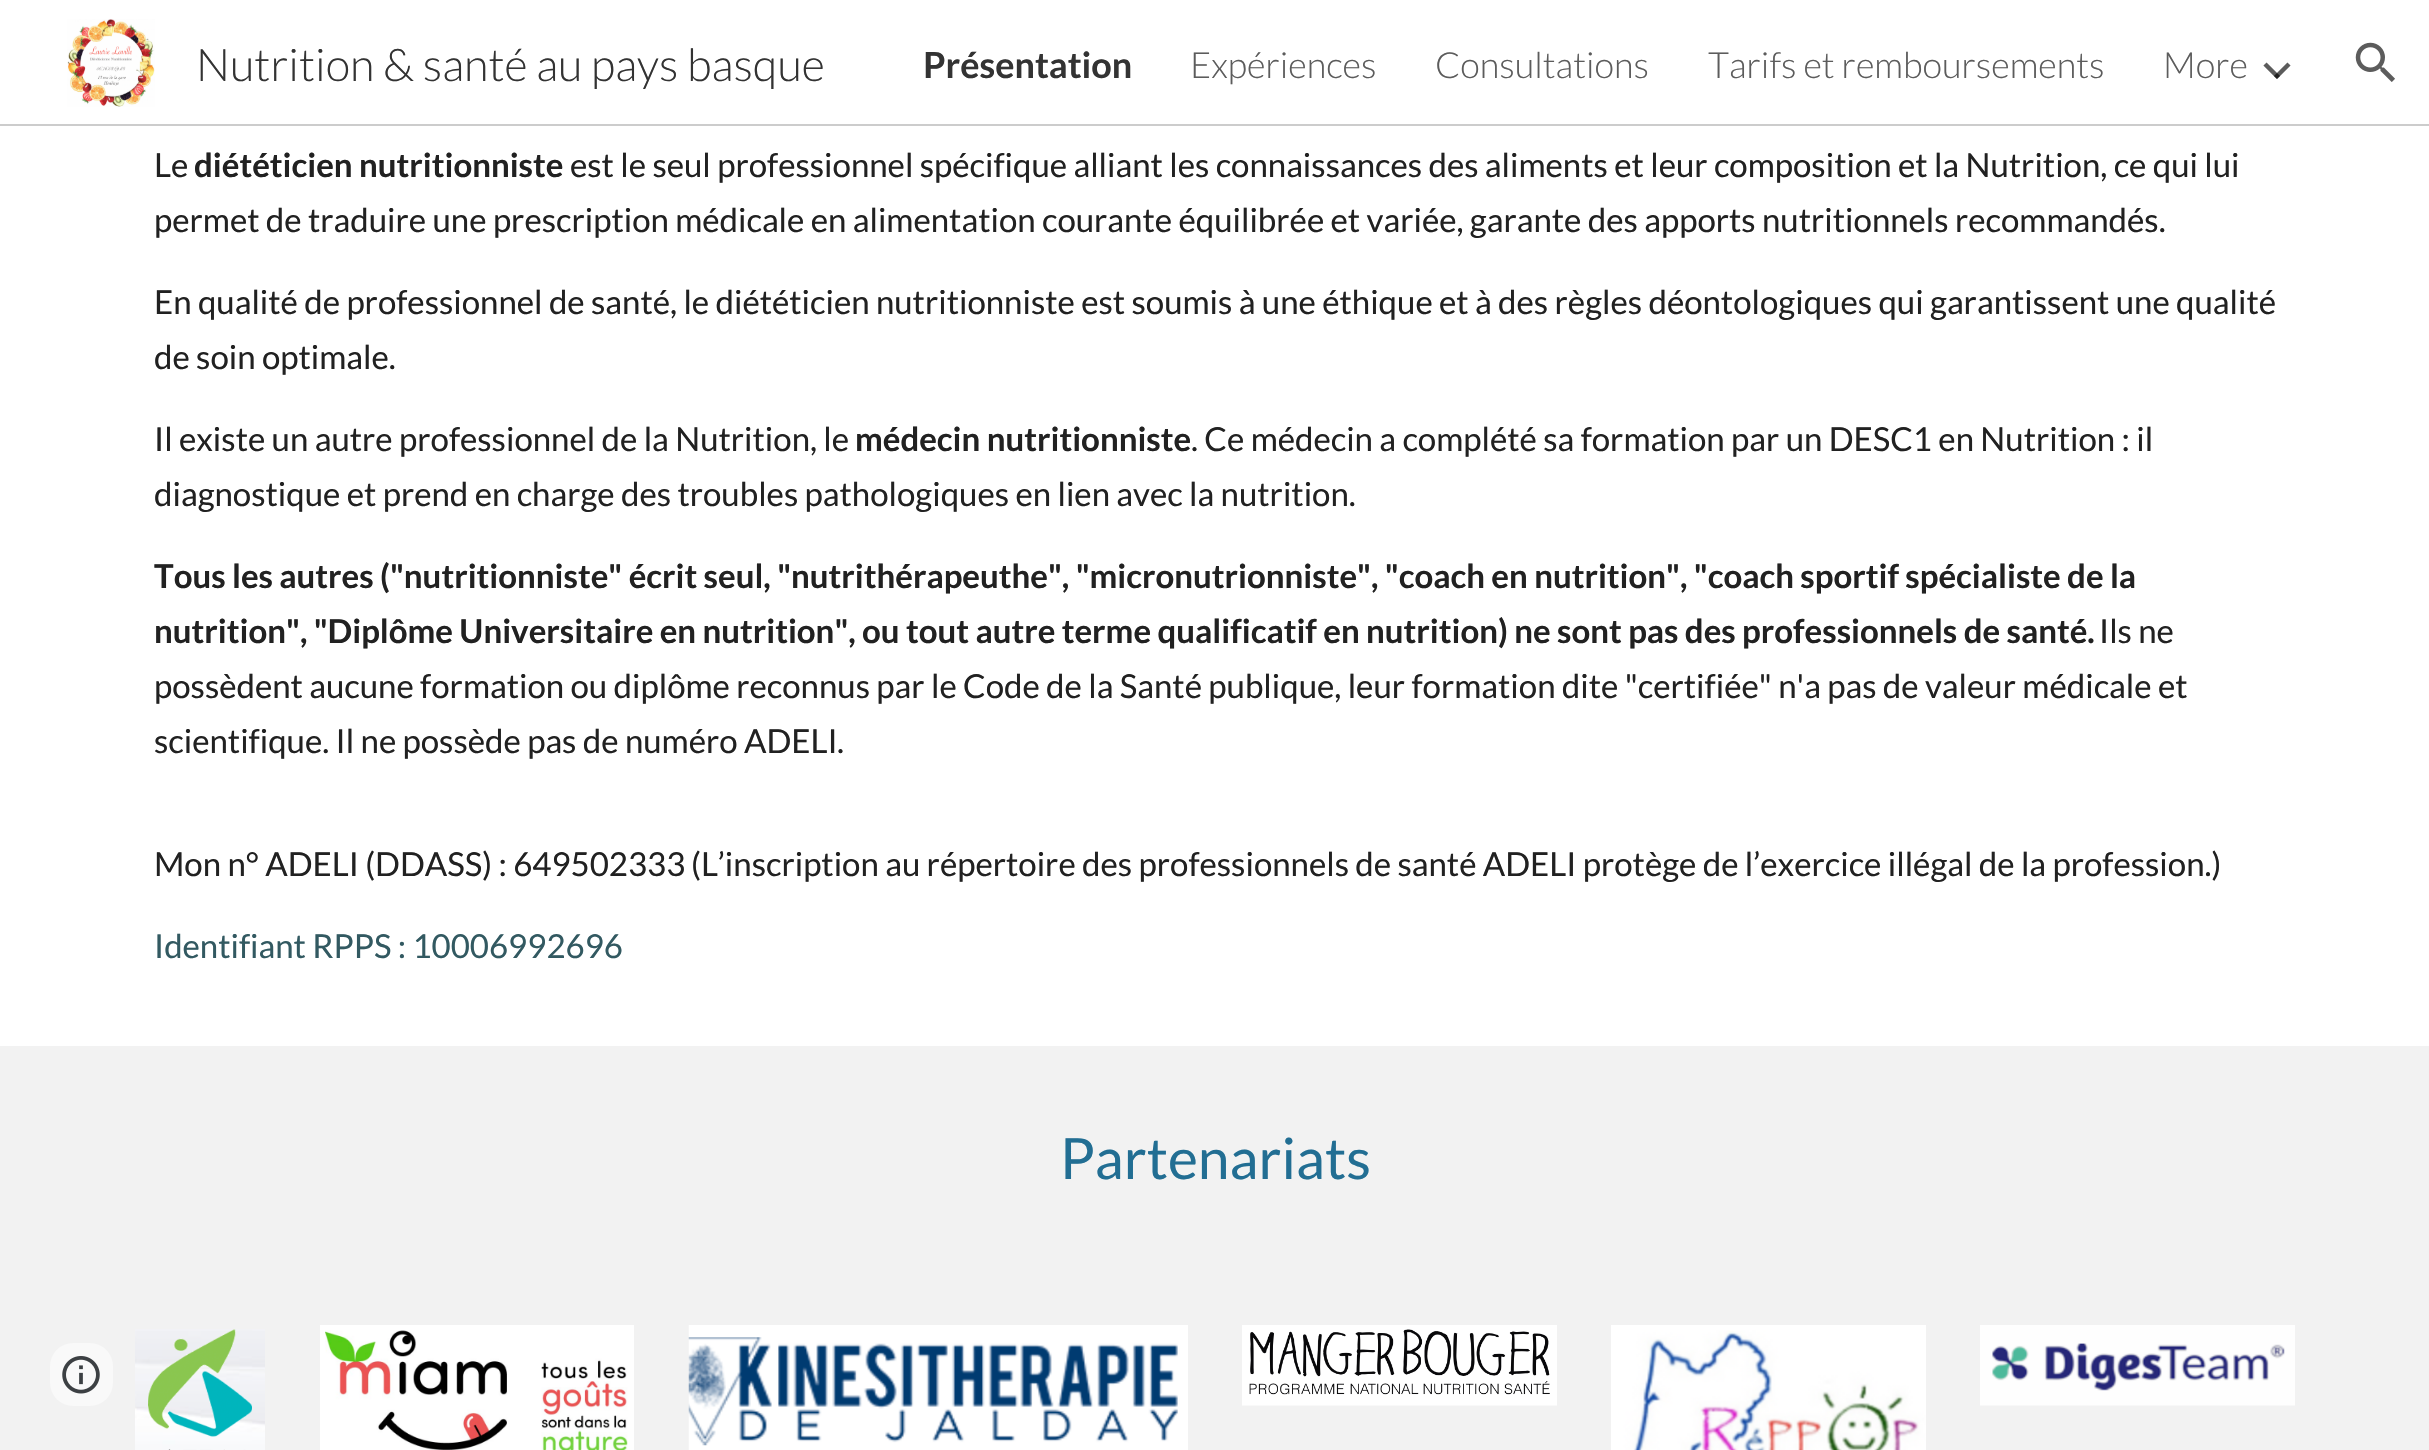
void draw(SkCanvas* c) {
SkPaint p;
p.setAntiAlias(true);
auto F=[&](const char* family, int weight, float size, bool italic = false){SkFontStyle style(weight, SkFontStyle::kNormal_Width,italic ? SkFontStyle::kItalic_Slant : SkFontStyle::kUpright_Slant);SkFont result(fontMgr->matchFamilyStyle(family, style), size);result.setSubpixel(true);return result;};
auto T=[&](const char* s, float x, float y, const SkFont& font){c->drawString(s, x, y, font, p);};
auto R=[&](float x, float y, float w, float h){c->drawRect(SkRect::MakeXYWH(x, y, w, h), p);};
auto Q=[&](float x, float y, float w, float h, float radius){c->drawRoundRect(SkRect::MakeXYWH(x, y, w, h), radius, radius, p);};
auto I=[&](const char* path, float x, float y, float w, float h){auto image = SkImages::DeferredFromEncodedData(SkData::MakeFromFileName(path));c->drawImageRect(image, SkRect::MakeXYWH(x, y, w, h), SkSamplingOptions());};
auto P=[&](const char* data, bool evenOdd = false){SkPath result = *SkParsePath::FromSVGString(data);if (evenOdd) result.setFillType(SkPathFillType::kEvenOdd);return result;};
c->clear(0xffffffff);
I("1.png",67,19,88,88);
auto f1 = F("Lato",300,45);
p.setColor(0xff333333);
T("Nutrition & santé au pays basque",196,81,f1);
auto f2 = F("Lato",700,36);
T("Présentation",923,78,f2);
auto f3 = F("Lato",300,36);
p.setColor(0xff5c5c5c);
T("Expériences",1190,78,f3);
T("Consultations",1435,78,f3);
T("Tarifs et remboursements",1708,78,f3);
T("More",2163,78,f3);
p.setStroke(true);
p.setStrokeWidth(4.5);
c->drawPath(P("M2265 64l13.5 13.5"),p);
p.setColor(0xa3000000);
c->drawPath(P("M2275.5 77.5l13.5-13.5"),p);
I("2.png",2355,42,40,40);
p.setStroke(false);
p.setColor(0xffcccccc);
R(0,124,2429,2);
auto f4 = F("Lato",400,33);
p.setColor(0xff212121);
T("Le",154,177,f4);
auto f5 = F("Lato",700,33);
T("diététicien nutritionniste",194,177,f5);
T("est le seul professionnel spécifique alliant les connaissances des aliments et leur composition et la Nutrition, ce qui lui",570,177,f4);
T("permet de traduire une prescription médicale en alimentation courante équilibrée et variée, garante des apports nutritionnels recommandés.",154,232,f4);
T("En qualité de professionnel de santé, le diététicien nutritionniste est soumis à une éthique et à des règles déontologiques qui garantissent une qualité",154,314,f4);
T("de soin optimale.",154,369,f4);
T("Il existe un autre professionnel de la Nutrition, le",154,451,f4);
T("médecin nutritionniste",855,451,f5);
T(". Ce médecin a complété sa formation par un DESC1 en Nutrition : il",1191,451,f4);
T("diagnostique et prend en charge des troubles pathologiques en lien avec la nutrition.",154,506,f4);
T("Tous les autres (\"nutritionniste\" écrit seul, \"nutrithérapeuthe\", \"micronutrionniste\", \"coach en nutrition\", \"coach sportif spécialiste de la",154,588,f5);
T("nutrition\", \"Diplôme Universitaire en nutrition\", ou tout autre terme qualificatif en nutrition) ne sont pas des professionnels de santé.",154,643,f5);
T("Ils ne",2099,643,f4);
T("possèdent aucune formation ou diplôme reconnus par le Code de la Santé publique, leur formation dite \"certifiée\" n'a pas de valeur médicale et",154,698,f4);
T("scientifique. Il ne possède pas de numéro ADELI",154,753,f4);
T(".",837,753,f4);
T("Mon n° ADELI (DDASS) : 649502333",154,876,f4);
T("(L’inscription au répertoire des professionnels de santé ADELI protège de l’exercice illégal de la profession.)",691,876,f4);
p.setColor(0xff325961);
T("Identifiant RPPS : 10006992696",154,958,f4);
p.setColor(0xfff2f2f2);
R(0,1046,2429,404);
auto f6 = F("Lato",400,57);
p.setColor(0xff226e93);
T("Partenariats",1060,1179,f6);
I("3.png",135,1329,130,121);
I("4.png",320,1325,314,125);
I("5.png",688,1325,500,125);
I("6.png",1242,1325,315,81);
I("7.png",1611,1325,315,125);
I("8.png",1980,1325,315,81);
p.setColor(0xfff9f9f9);
Q(50,1343,63,63,23);
I("9.png",62,1356,38,38);
}
